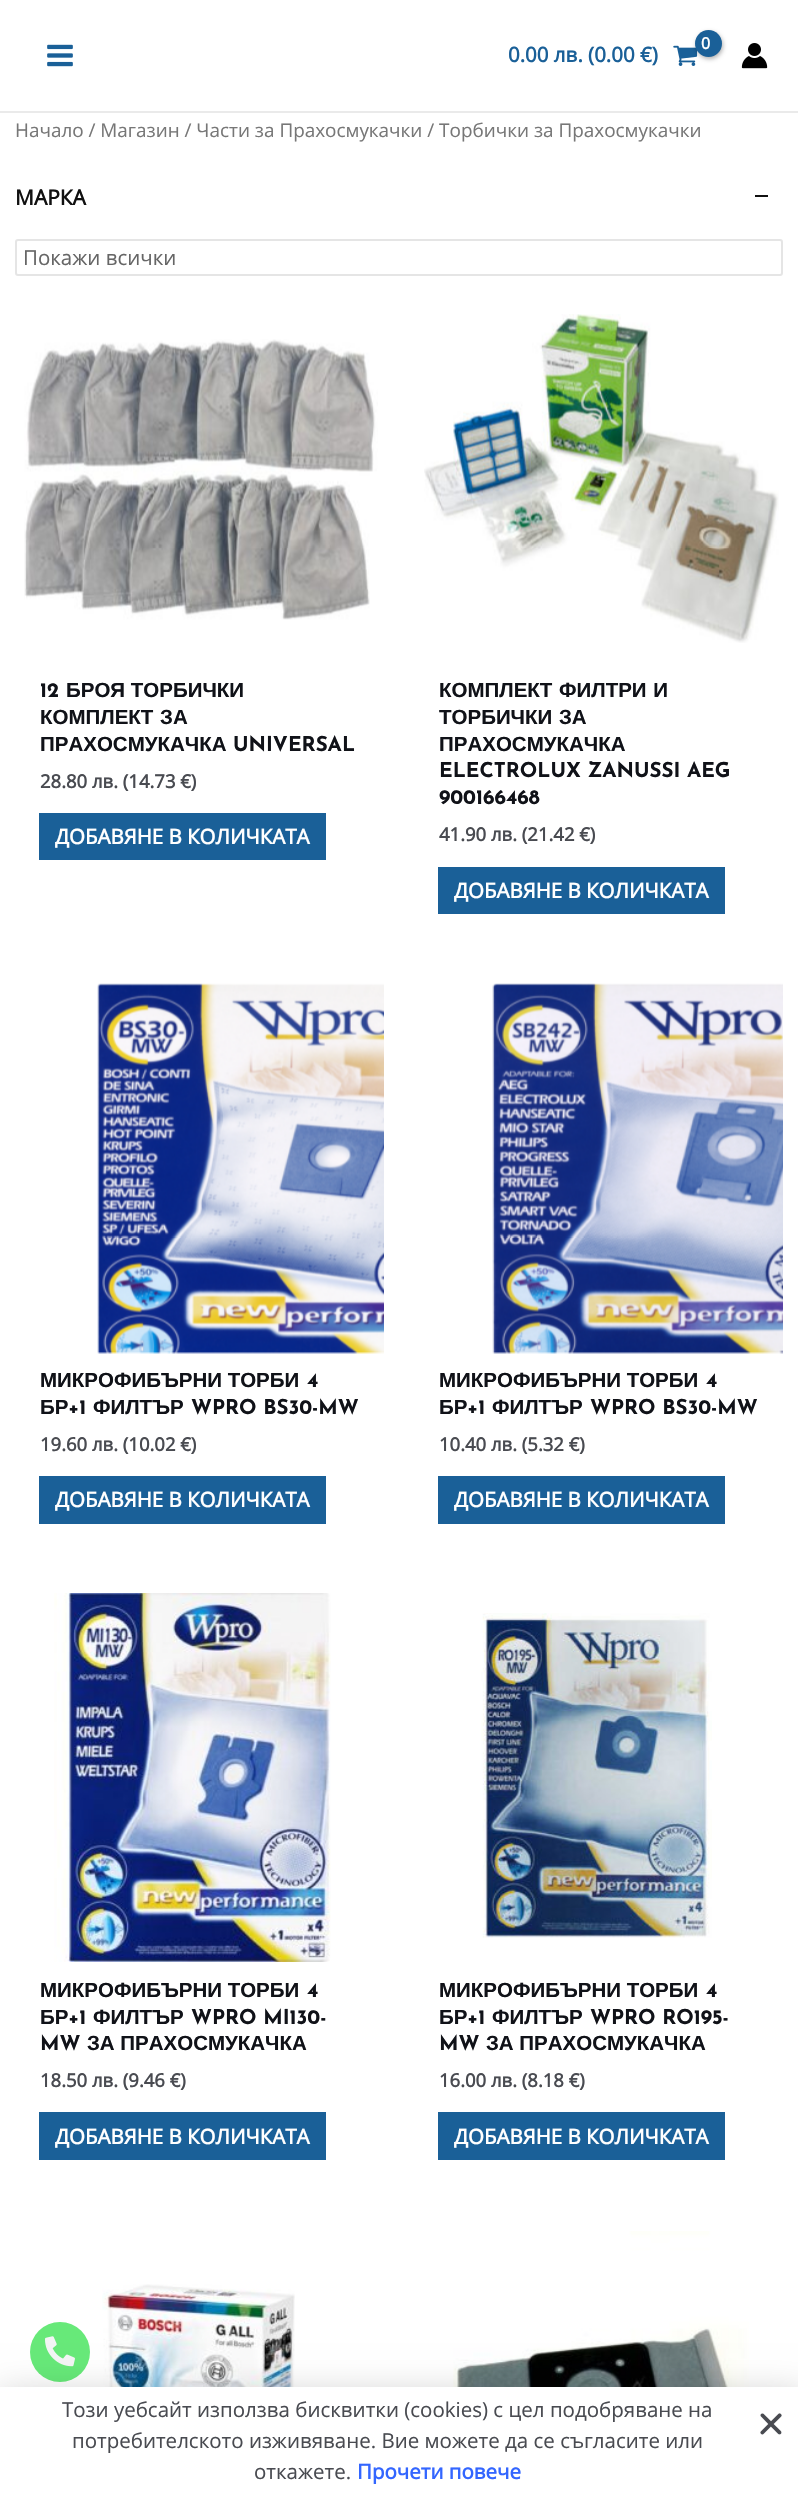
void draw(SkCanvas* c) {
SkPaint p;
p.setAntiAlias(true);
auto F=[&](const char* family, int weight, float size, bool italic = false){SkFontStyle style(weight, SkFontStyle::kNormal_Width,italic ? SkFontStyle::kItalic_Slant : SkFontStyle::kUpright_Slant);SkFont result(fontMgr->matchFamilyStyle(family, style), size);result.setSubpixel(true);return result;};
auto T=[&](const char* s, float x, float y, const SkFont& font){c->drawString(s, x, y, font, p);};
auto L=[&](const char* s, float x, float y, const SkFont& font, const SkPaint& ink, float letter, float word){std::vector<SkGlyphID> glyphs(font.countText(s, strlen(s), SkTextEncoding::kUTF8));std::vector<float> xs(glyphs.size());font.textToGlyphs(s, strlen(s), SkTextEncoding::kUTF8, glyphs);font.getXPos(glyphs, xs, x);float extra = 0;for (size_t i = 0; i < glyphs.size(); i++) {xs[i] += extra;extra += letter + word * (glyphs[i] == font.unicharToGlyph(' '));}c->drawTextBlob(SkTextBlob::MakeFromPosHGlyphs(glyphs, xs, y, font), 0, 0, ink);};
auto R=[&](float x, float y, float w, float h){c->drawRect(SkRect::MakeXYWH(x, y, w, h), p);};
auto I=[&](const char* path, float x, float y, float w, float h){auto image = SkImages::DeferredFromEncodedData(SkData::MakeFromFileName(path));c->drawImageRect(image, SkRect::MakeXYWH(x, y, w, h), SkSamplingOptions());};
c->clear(0xffffffff);
p.setColor(0xffeaeaea);
R(0,111,798,2);
I("1.png",47,44,26,23);
I("2.png",673,45,25,21);
p.setColor(0x4d000000);
p.setMaskFilter(SkMaskFilter::MakeBlur(kNormal_SkBlurStyle, 2));
c->drawRoundRect(SkRect::MakeXYWH(696,32,27,27),13.5,13.5,p);
p.setMaskFilter(nullptr);
p.setColor(0xff1a6098);
c->drawCircle(708.5,43.5,13.5,p);
auto f1 = F("Open Sans",700,16);
p.setColor(0xffffffff);
L("0",701,49,f1,p,-1,0);
auto f2 = F("Open Sans",700,20.5);
p.setColor(0xff1a6098);
T("0.00 лв. (0.00 €)",508,62,f2);
I("3.png",741,43,27,26);
auto f3 = F("Open Sans",400,18.9);
p.setColor(0xff777777);
T("Начало / Магазин / Части за Прахосмукачки / Торбички за Прахосмукачки",15,137,f3);
auto f4 = F("Open Sans",700,21);
p.setColor(0xff111111);
T("МАРКА",15,205,f4);
R(755,195,13,2);
p.setStroke(true);
p.setStrokeWidth(2);
p.setColor(0xffe5e5e5);
c->drawRoundRect(SkRect::MakeXYWH(16,240,766,35),2,2,p);
auto f5 = F("Open Sans",400,20.5);
p.setStroke(false);
p.setColor(0xff666666);
T("Покажи всички",23,265,f5);
I("4.png",24,339,354,281);
auto f6 = F("Josefin Sans",100,20.5);
p.setColor(0xff101218);
T("12",40,697,f6);
auto f7 = F("Liberation Sans",700,20.5);
T("БРОЯ ТОРБИЧКИ",66,697,f7);
L("КОМПЛЕКТ ЗА",40,724,f7,p,0,1);
T("ПРАХОСМУКАЧКА",40,751,f7);
T("UNIVERSAL",233,751,f6);
auto f8 = F("Open Sans",700,18.5);
p.setColor(0xff494b51);
T("28.80 лв. (14.73 €)",40,788,f8);
p.setColor(0xff1a6098);
R(39,813,287,47);
p.setColor(0xffffffff);
T("ДОБАВЯНЕ В КОЛИЧКАТА",55,844,f2);
I("5.png",424,314,355,329);
p.setColor(0xff101218);
L("КОМПЛЕКТ ФИЛТРИ И",439,697,f7,p,0,1);
L("ТОРБИЧКИ ЗА",439,724,f7,p,0,1);
T("ПРАХОСМУКАЧКА",439,751,f7);
T("ELECTROLUX ZANUSSI AEG",439,777,f6);
T("900166468",439,804,f6);
p.setColor(0xff494b51);
T("41.90 лв. (21.42 €)",439,841,f8);
p.setColor(0xff1a6098);
R(438,867,287,47);
p.setColor(0xffffffff);
T("ДОБАВЯНЕ В КОЛИЧКАТА",454,898,f2);
I("6.png",97,983,287,371);
p.setColor(0xff101218);
T("МИКРОФИБЪРНИ ТОРБИ",40,1387,f7);
T("4",307,1387,f6);
T("БР",40,1414,f7);
T("+1",68,1414,f6);
T("ФИЛТЪР",93,1414,f7);
T("WPRO BS30-MW",191,1414,f6);
p.setColor(0xff494b51);
T("19.60 лв. (10.02 €)",40,1451,f8);
p.setColor(0xff1a6098);
R(39,1476,287,48);
p.setColor(0xffffffff);
T("ДОБАВЯНЕ В КОЛИЧКАТА",55,1507,f2);
I("7.png",492,983,291,371);
p.setColor(0xff101218);
T("МИКРОФИБЪРНИ ТОРБИ",439,1387,f7);
T("4",706,1387,f6);
T("БР",439,1414,f7);
T("+1",467,1414,f6);
T("ФИЛТЪР",492,1414,f7);
T("WPRO BS30-MW",590,1414,f6);
p.setColor(0xff494b51);
T("10.40 лв. (5.32 €)",439,1451,f8);
p.setColor(0xff1a6098);
R(438,1476,287,48);
p.setColor(0xffffffff);
T("ДОБАВЯНЕ В КОЛИЧКАТА",454,1507,f2);
I("8.png",54,1593,277,369);
p.setColor(0xff101218);
T("МИКРОФИБЪРНИ ТОРБИ",40,1997,f7);
T("4",307,1997,f6);
T("БР",40,2024,f7);
T("+1",68,2024,f6);
T("ФИЛТЪР",93,2024,f7);
T("WPRO MI130-",191,2024,f6);
T("MW",40,2050,f6);
T("ЗА ПРАХОСМУКАЧКА",87,2050,f7);
p.setColor(0xff494b51);
T("18.50 лв. (9.46 €)",40,2087,f8);
p.setColor(0xff1a6098);
R(39,2112,287,48);
p.setColor(0xffffffff);
T("ДОБАВЯНЕ В КОЛИЧКАТА",55,2144,f2);
I("9.png",481,1613,231,325);
p.setColor(0xff101218);
T("МИКРОФИБЪРНИ ТОРБИ",439,1997,f7);
T("4",706,1997,f6);
T("БР",439,2024,f7);
T("+1",467,2024,f6);
T("ФИЛТЪР",492,2024,f7);
T("WPRO RO195-",590,2024,f6);
T("MW",439,2050,f6);
T("ЗА ПРАХОСМУКАЧКА",486,2050,f7);
p.setColor(0xff494b51);
T("16.00 лв. (8.18 €)",439,2087,f8);
p.setColor(0xff1a6098);
R(438,2112,287,48);
p.setColor(0xffffffff);
T("ДОБАВЯНЕ В КОЛИЧКАТА",454,2144,f2);
I("10.png",102,2284,193,103);
I("11.png",453,2231,296,156);
p.setColor(0xff67e979);
c->drawCircle(60,2352,30,p);
I("12.png",45,2336,30,31);
p.setColor(0x33000000);
p.setMaskFilter(SkMaskFilter::MakeBlur(kNormal_SkBlurStyle, 17));
c->drawRect(SkRect::MakeXYWH(-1,2394,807,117),p);
p.setMaskFilter(nullptr);
p.setColor(0xffffffff);
R(0,2387,798,107);
p.setColor(0xff494b51);
T("Този уебсайт използва бисквитки (cookies) с цел подобряване на",62,2417,f5);
T("потребителското изживяване. Вие можете да се съгласите или",72,2448,f5);
T("откажете.",254,2479,f5);
p.setColor(0xff3366ff);
T("Прочети повече",357,2479,f2);
I("13.png",760,2413,22,22);
}
